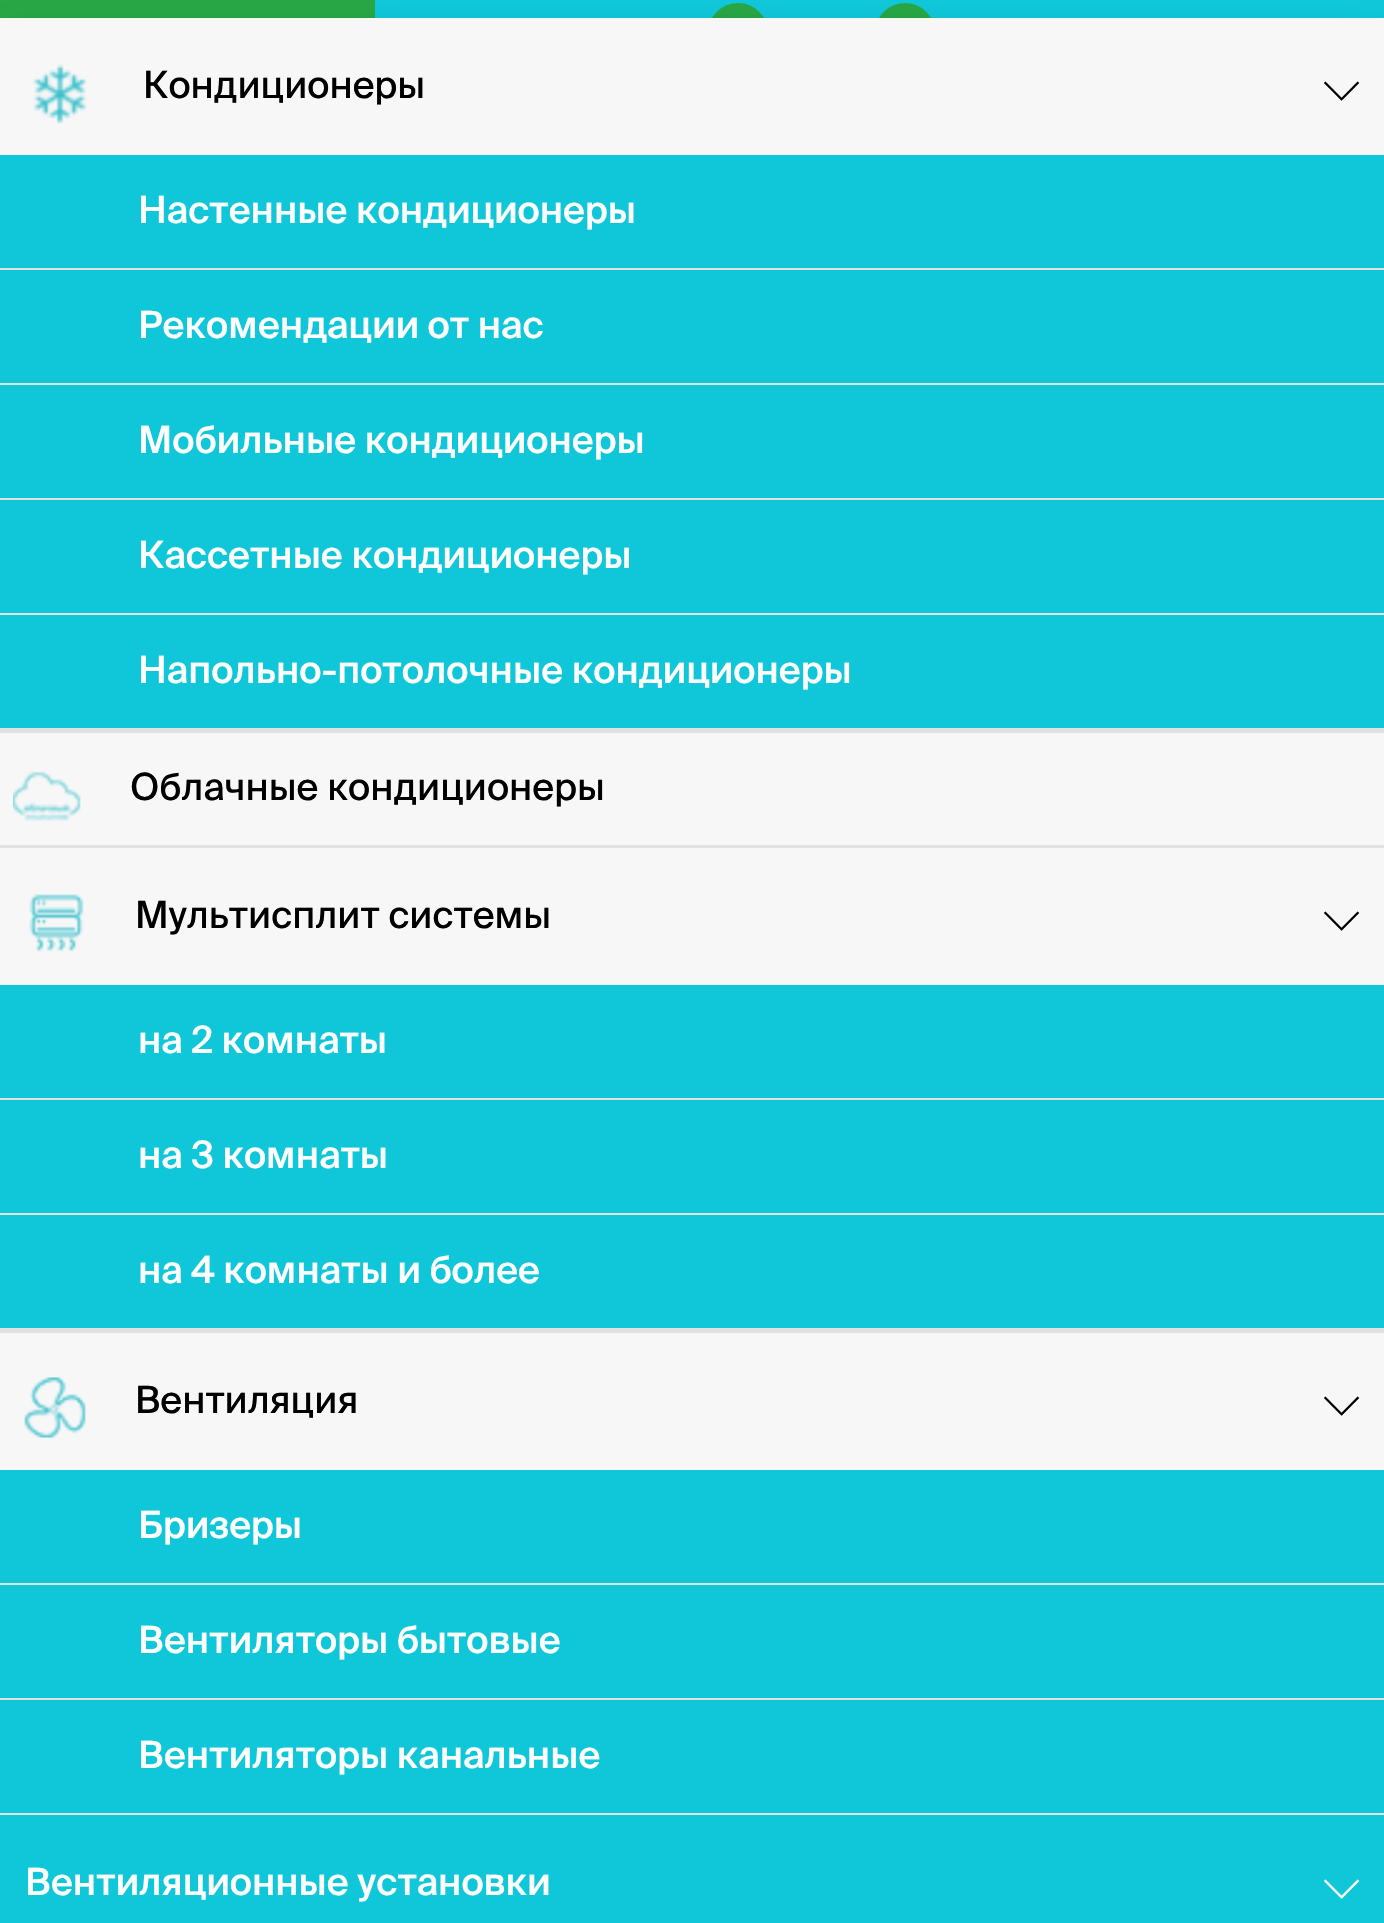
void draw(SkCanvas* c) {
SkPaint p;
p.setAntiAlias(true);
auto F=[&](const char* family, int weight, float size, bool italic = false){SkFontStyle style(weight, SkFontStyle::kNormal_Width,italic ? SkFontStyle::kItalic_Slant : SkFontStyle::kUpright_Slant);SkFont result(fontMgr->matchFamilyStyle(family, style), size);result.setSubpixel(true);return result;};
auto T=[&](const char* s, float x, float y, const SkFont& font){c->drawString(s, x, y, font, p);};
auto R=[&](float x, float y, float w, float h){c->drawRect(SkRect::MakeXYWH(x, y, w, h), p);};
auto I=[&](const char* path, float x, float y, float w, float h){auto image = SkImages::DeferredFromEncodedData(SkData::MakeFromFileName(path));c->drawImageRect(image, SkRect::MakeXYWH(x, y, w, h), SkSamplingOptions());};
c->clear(0xff10c7da);
p.setColor(0xff28a745);
c->drawCircle(738,33,28.5,p);
p.setStroke(true);
p.setStrokeWidth(3);
c->drawCircle(738,33,28.5,p);
p.setStroke(false);
c->drawCircle(905,33,28.5,p);
p.setStroke(true);
c->drawCircle(905,33,28.5,p);
p.setStroke(false);
R(0,0,375,18);
p.setColor(0xc7000000);
p.setMaskFilter(SkMaskFilter::MakeBlur(kNormal_SkBlurStyle, 20));
c->drawRect(SkRect::MakeXYWH(13,53,1360,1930),p);
p.setMaskFilter(nullptr);
p.setColor(0xfff7f7f7);
R(0,18,1384,1452);
p.setColor(0xffe1e1e1);
R(0,728,1384,5);
I("1.png",32,64,56,60);
auto f1 = F("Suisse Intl",400,37.5);
p.setColor(0xff000000);
T("Кондиционеры",143,98,f1);
auto f2 = F("FreeSerif",400,49);
T("⌵",1323,100,f2);
p.setColor(0xff10c7da);
R(0,155,1384,113);
p.setColor(0xffe1e1e1);
R(0,268,1384,2);
auto f3 = F("Suisse Intl",500,37.5);
p.setColor(0xffffffff);
T("Настенные кондиционеры",138,223,f3);
p.setColor(0xff10c7da);
R(0,270,1384,113);
p.setColor(0xffe1e1e1);
R(0,383,1384,2);
p.setColor(0xffffffff);
T("Рекомендации от нас",138,338,f3);
p.setColor(0xff10c7da);
R(0,385,1384,113);
p.setColor(0xffe1e1e1);
R(0,498,1384,2);
p.setColor(0xffffffff);
T("Мобильные кондиционеры",138,453,f3);
p.setColor(0xff10c7da);
R(0,500,1384,113);
p.setColor(0xffe1e1e1);
R(0,613,1384,2);
p.setColor(0xffffffff);
T("Кассетные кондиционеры",138,568,f3);
p.setColor(0xff10c7da);
R(0,615,1384,113);
p.setColor(0xffffffff);
T("Напольно-потолочные кондиционеры",138,683,f3);
p.setColor(0xffe1e1e1);
R(0,845,1384,3);
I("2.png",13,771,68,50);
p.setColor(0xff000000);
T("Облачные кондиционеры",130,800,f1);
p.setColor(0xffe1e1e1);
R(0,1328,1384,5);
I("3.png",29,894,55,58);
p.setColor(0xff000000);
T("Мультисплит системы",135,928,f1);
T("⌵",1323,930,f2);
p.setColor(0xff10c7da);
R(0,985,1384,113);
p.setColor(0xffe1e1e1);
R(0,1098,1384,2);
p.setColor(0xffffffff);
T("на 2 комнаты",138,1053,f3);
p.setColor(0xff10c7da);
R(0,1100,1384,113);
p.setColor(0xffe1e1e1);
R(0,1213,1384,2);
p.setColor(0xffffffff);
T("на 3 комнаты",138,1168,f3);
p.setColor(0xff10c7da);
R(0,1215,1384,113);
p.setColor(0xffffffff);
T("на 4 комнаты и более",138,1283,f3);
I("4.png",24,1377,62,61);
p.setColor(0xff000000);
T("Вентиляция",135,1413,f1);
T("⌵",1323,1415,f2);
p.setColor(0xff10c7da);
R(0,1470,1384,113);
p.setColor(0xffe1e1e1);
R(0,1583,1384,2);
p.setColor(0xffffffff);
T("Бризеры",138,1538,f3);
p.setColor(0xff10c7da);
R(0,1585,1384,113);
p.setColor(0xffe1e1e1);
R(0,1698,1384,2);
p.setColor(0xffffffff);
T("Вентиляторы бытовые",138,1653,f3);
p.setColor(0xff10c7da);
R(0,1700,1384,113);
p.setColor(0xffe1e1e1);
R(0,1813,1384,2);
p.setColor(0xffffffff);
T("Вентиляторы канальные",138,1768,f3);
p.setColor(0xff10c7da);
R(0,1815,1384,108);
p.setColor(0xffffffff);
T("Вентиляционные установки",25,1895,f3);
T("⌵",1323,1898,f2);
}
